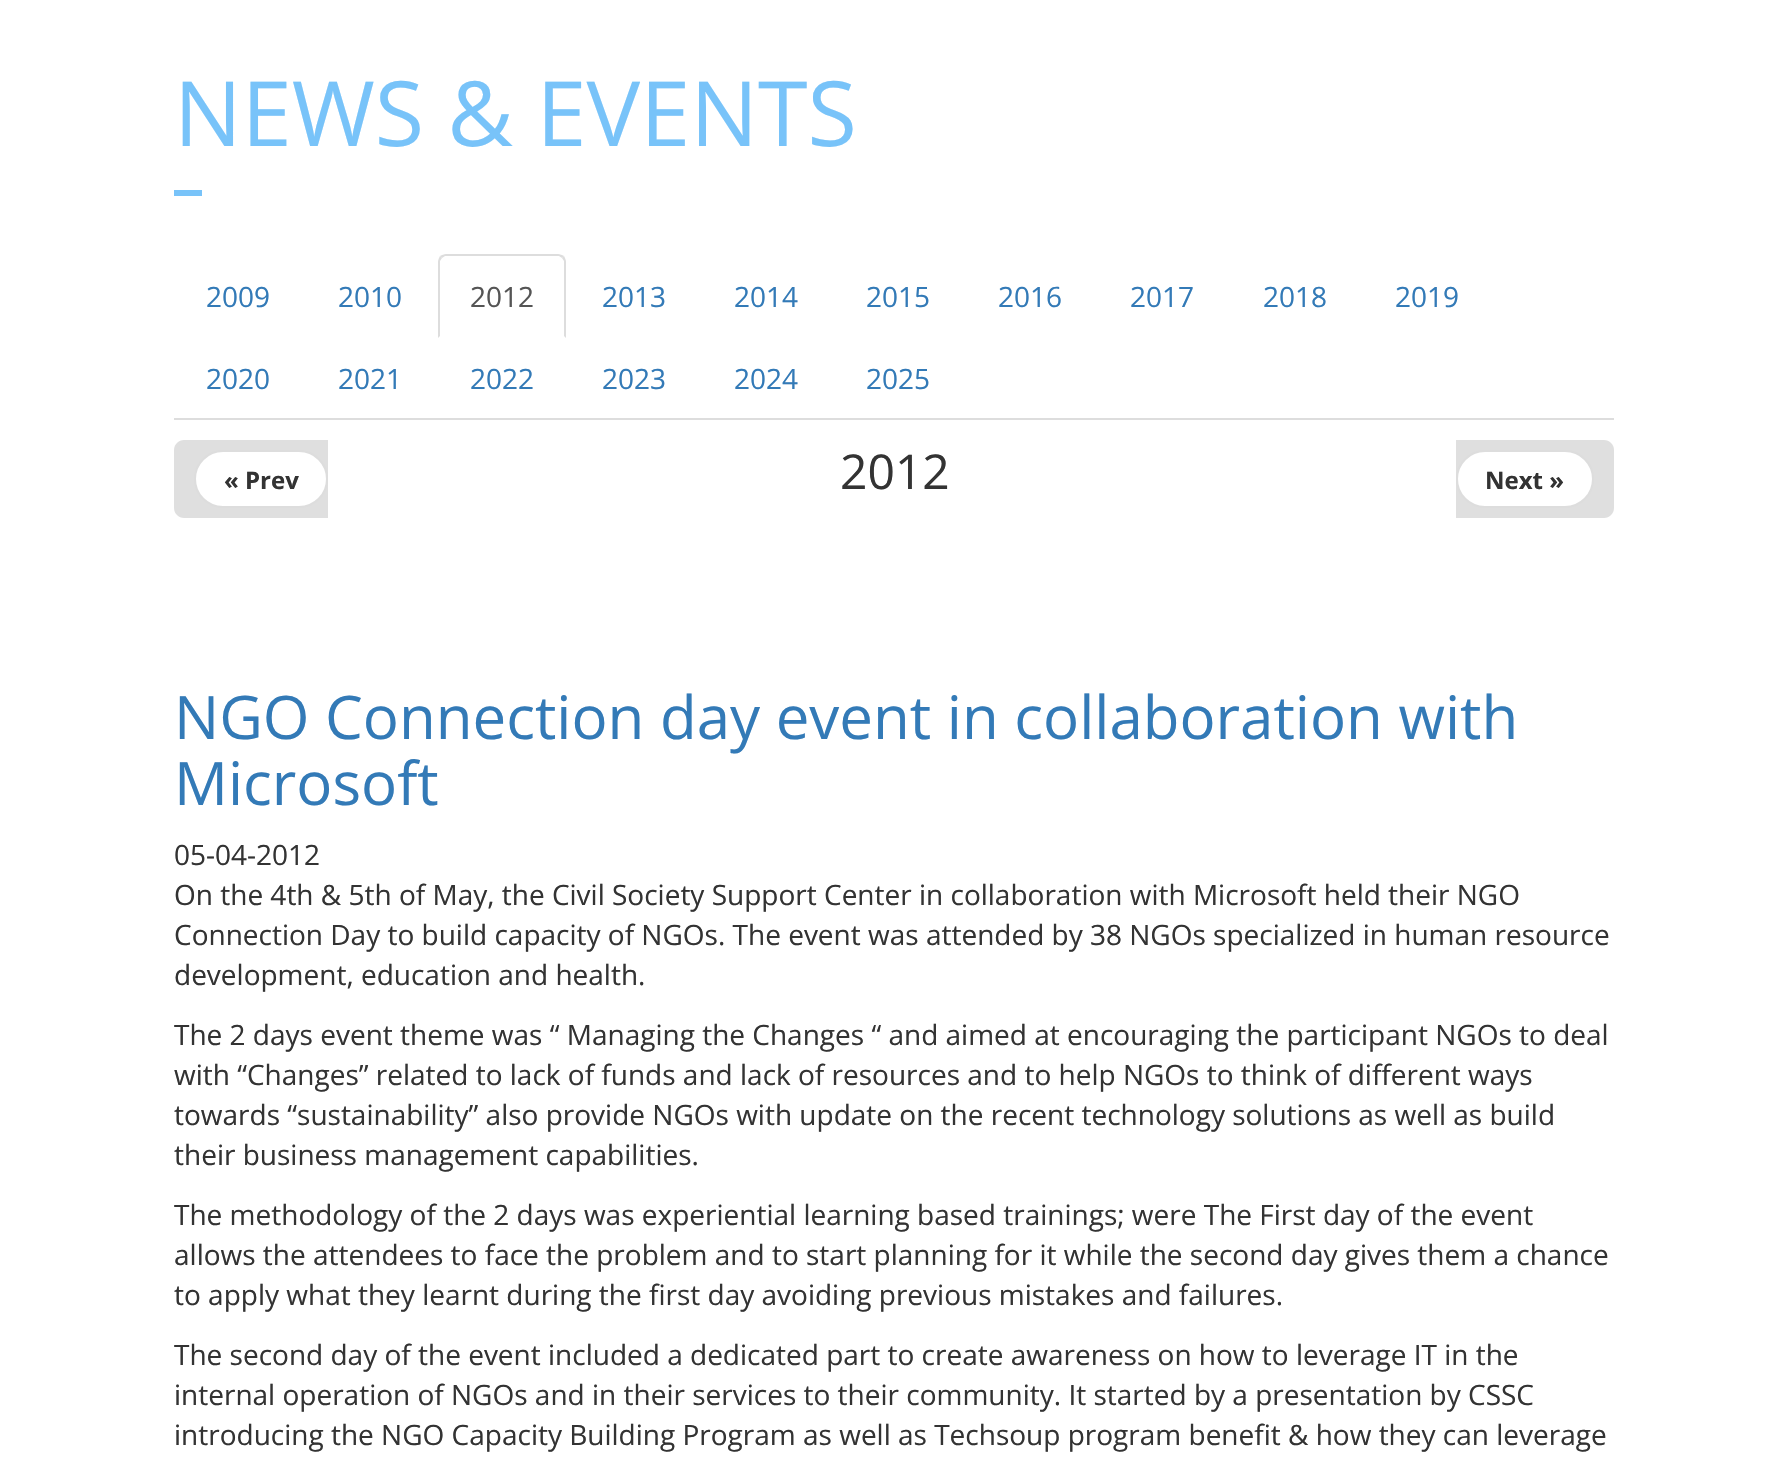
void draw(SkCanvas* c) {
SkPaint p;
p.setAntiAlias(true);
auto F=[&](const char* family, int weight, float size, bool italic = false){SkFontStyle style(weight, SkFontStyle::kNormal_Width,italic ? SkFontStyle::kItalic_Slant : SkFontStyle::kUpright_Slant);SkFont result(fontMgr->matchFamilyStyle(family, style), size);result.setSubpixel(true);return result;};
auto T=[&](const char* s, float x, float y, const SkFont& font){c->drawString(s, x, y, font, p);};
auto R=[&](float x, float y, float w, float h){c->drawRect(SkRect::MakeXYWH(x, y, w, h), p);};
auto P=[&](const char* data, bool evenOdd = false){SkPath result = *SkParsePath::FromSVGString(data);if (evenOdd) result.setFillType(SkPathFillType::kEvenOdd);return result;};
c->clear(0xffffffff);
auto f1 = F("Open Sans",400,90);
p.setColor(0xff78c3f9);
T("NEWS & EVENTS",174,146,f1);
R(174,190,28,6);
p.setColor(0xffdddddd);
R(174,418,1440,2);
auto f2 = F("Open Sans",400,28);
p.setColor(0xff337ab7);
T("2009",206,307,f2);
T("2010",338,307,f2);
p.setColor(0xffdddddd);
c->drawPath(P("M446 254c-2 0-4 1-6 2l2 2l3-2h114l3 2l2-2c-2-1-4-2-6-2z"),p);
c->drawPath(P("M566 338v-76c0-2-1-4-2-6l-2 2l2 3v75z"),p);
c->drawPath(P("M438 338l2-2v-75l2-3l-2-2c-1 2-2 4-2 6z"),p);
p.setColor(0xff555555);
T("2012",470,307,f2);
p.setColor(0xff337ab7);
T("2013",602,307,f2);
T("2014",734,307,f2);
T("2015",866,307,f2);
T("2016",998,307,f2);
T("2017",1130,307,f2);
T("2018",1263,307,f2);
T("2019",1395,307,f2);
T("2020",206,389,f2);
T("2021",338,389,f2);
T("2022",470,389,f2);
T("2023",602,389,f2);
T("2024",734,389,f2);
T("2025",866,389,f2);
auto f3 = F("Open Sans",400,48);
p.setColor(0xff333333);
T("2012",840,489,f3);
p.setColor(0xffdfdfdf);
c->drawPath(P("M184 440h144v78h-144c-5.5 0-10-4.5-10-10v-58c0-5.5 4.5-10 10-10z"),p);
p.setColor(0xffffffff);
c->drawRoundRect(SkRect::MakeXYWH(195,451,132,56),28,28,p);
p.setStroke(true);
p.setStrokeWidth(2);
p.setColor(0xffdddddd);
c->drawRoundRect(SkRect::MakeXYWH(195,451,132,56),28,28,p);
auto f4 = F("Open Sans",700,24);
p.setStroke(false);
p.setColor(0xff333333);
T("« Prev",224,489,f4);
p.setColor(0xffdfdfdf);
c->drawPath(P("M1456 440h148c5.5 0 10 4.5 10 10v58c0 5.5-4.5 10-10 10h-148z"),p);
p.setColor(0xffffffff);
c->drawRoundRect(SkRect::MakeXYWH(1457,451,136,56),28,28,p);
p.setStroke(true);
p.setColor(0xffdddddd);
c->drawRoundRect(SkRect::MakeXYWH(1457,451,136,56),28,28,p);
p.setStroke(false);
p.setColor(0xff333333);
T("Next »",1485,489,f4);
auto f5 = F("Open Sans",400,60);
p.setColor(0xff337ab7);
T("NGO Connection day event in collaboration with",174,739,f5);
T("Microsoft",174,805,f5);
p.setColor(0xff333333);
T("05-04-2012",174,865,f2);
T("On the 4th & 5th of May, the Civil Society Support Center in collaboration with Microsoft held their NGO",174,905,f2);
T("Connection Day to build capacity of NGOs. The event was attended by 38 NGOs specialized in human resource",174,945,f2);
T("development, education and health.",174,985,f2);
T("The 2 days event theme was “ Managing the Changes “ and aimed at encouraging the participant NGOs to deal",174,1045,f2);
T("with “Changes” related to lack of funds and lack of resources and to help NGOs to think of different ways",174,1085,f2);
T("towards “sustainability” also provide NGOs with update on the recent technology solutions as well as build",174,1125,f2);
T("their business management capabilities.",174,1165,f2);
T("The methodology of the 2 days was experiential learning based trainings; were The First day of the event",174,1225,f2);
T("allows the attendees to face the problem and to start planning for it while the second day gives them a chance",174,1265,f2);
T("to apply what they learnt during the first day avoiding previous mistakes and failures.",174,1305,f2);
T("The second day of the event included a dedicated part to create awareness on how to leverage IT in the",174,1365,f2);
T("internal operation of NGOs and in their services to their community. It started by a presentation by CSSC",174,1405,f2);
T("introducing the NGO Capacity Building Program as well as Techsoup program benefit & how they can leverage",174,1445,f2);
}
